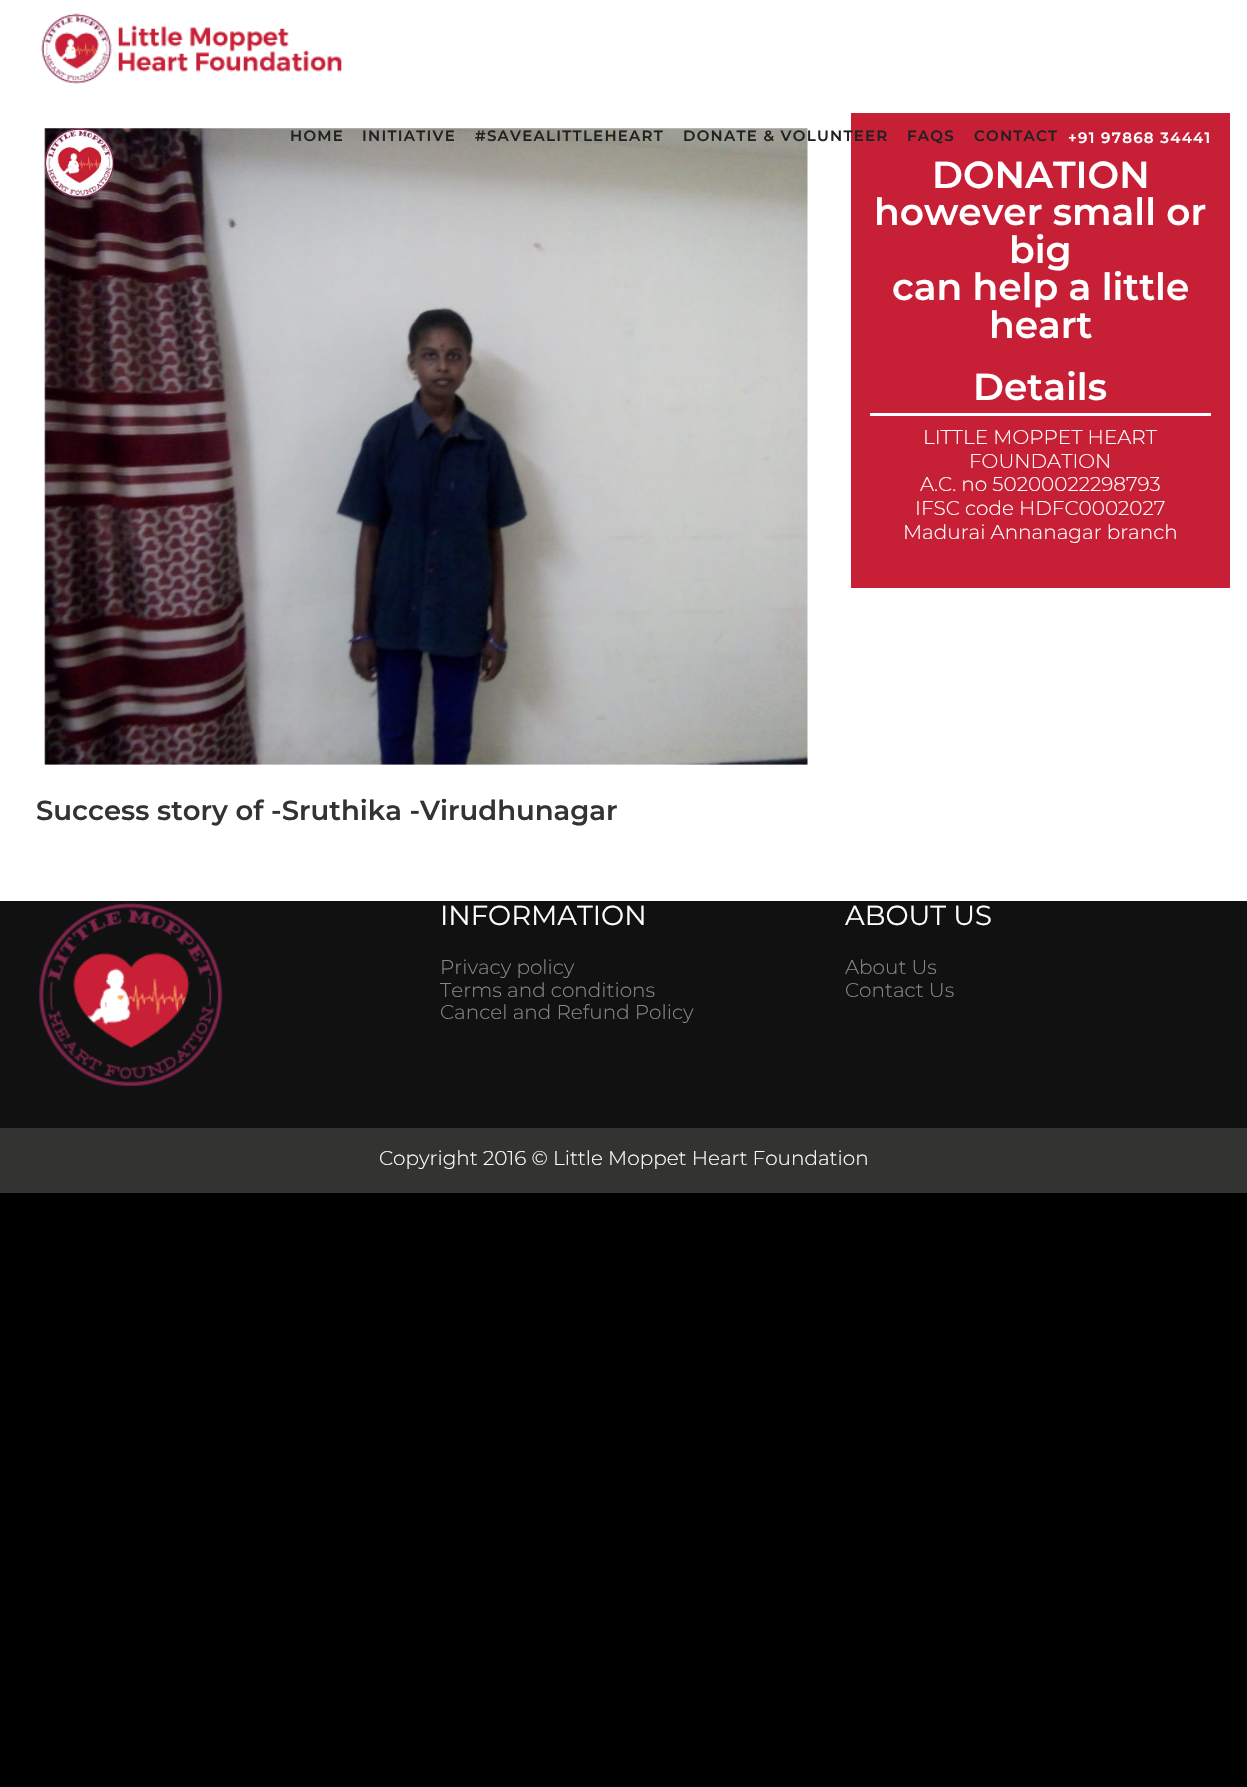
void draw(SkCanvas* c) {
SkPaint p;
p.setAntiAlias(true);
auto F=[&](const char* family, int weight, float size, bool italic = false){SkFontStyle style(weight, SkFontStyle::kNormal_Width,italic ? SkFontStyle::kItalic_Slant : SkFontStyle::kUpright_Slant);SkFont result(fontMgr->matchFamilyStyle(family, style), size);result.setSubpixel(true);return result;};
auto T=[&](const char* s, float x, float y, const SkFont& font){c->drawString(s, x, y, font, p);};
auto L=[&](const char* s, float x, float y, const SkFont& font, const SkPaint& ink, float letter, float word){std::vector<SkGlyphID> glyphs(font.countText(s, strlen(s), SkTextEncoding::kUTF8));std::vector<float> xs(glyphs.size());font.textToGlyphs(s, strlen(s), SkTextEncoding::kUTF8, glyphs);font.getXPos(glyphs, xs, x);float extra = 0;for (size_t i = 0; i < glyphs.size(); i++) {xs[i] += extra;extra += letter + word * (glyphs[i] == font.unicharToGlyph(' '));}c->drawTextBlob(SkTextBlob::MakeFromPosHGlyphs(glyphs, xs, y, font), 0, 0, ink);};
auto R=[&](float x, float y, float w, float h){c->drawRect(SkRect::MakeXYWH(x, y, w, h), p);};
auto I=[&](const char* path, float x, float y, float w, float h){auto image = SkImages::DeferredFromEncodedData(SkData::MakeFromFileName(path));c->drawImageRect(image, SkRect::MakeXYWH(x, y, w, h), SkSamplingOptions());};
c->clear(0xff000000);
p.setColor(0xffffffff);
R(0,0,1247,901);
I("1.png",41,13,301,71);
I("2.png",44,128,764,637);
auto f1 = F("Montserrat",600,15);
p.setColor(0xff212121);
L("HOME",290,141,f1,p,1.25,0);
L("INITIATIVE",362,141,f1,p,1.25,0);
L("#SAVEALITTLEHEART",475,141,f1,p,1.25,0);
p.setColor(0xffc61f36);
R(851,113,379,475);
p.setColor(0xff212121);
L("DONATE & VOLUNTEER",683,141,f1,p,1.25,0);
L("FAQS",907,141,f1,p,1.25,0);
L("CONTACT",974,141,f1,p,1.25,0);
p.setColor(0xffffffff);
L("+91 97868 34441",1068,143,f1,p,1.25,0);
R(870,413,341,3);
auto f2 = F("Montserrat",600,37.5);
T("DONATION",932,188,f2);
T("however small or",874,225,f2);
T("big",1009,263,f2);
T("can help a little",892,300,f2);
T("heart",989,338,f2);
T("Details",973,400,f2);
auto f3 = F("Montserrat",300,20);
T("LITTLE MOPPET HEART",923,444,f3);
T("FOUNDATION",969,468,f3);
T("A.C. no 50200022298793",920,491,f3);
T("IFSC code HDFC0002027",915,515,f3);
T("Madurai Annanagar branch",903,539,f3);
auto f4 = F("Montserrat",600,27.5);
p.setColor(0xff333333);
T("Success story of -Sruthika -Virudhunagar",36,820,f4);
p.setColor(0xff111111);
R(0,901,1247,227);
I("3.png",38,902,185,184);
auto f5 = F("Montserrat",400,27.5);
p.setColor(0xffffffff);
T("INFORMATION",440,925,f5);
p.setColor(0xff888888);
T("Privacy policy",440,974,f3);
T("Terms and conditions",440,997,f3);
T("Cancel and Refund Policy",440,1019,f3);
p.setColor(0xffffffff);
T("ABOUT US",845,925,f5);
p.setColor(0xff888888);
T("About Us",845,974,f3);
T("Contact Us",845,997,f3);
p.setColor(0xff333332);
R(0,1128,1247,65);
p.setColor(0xffffffff);
T("Copyright 2016 © Little Moppet Heart Foundation",379,1165,f3);
}
